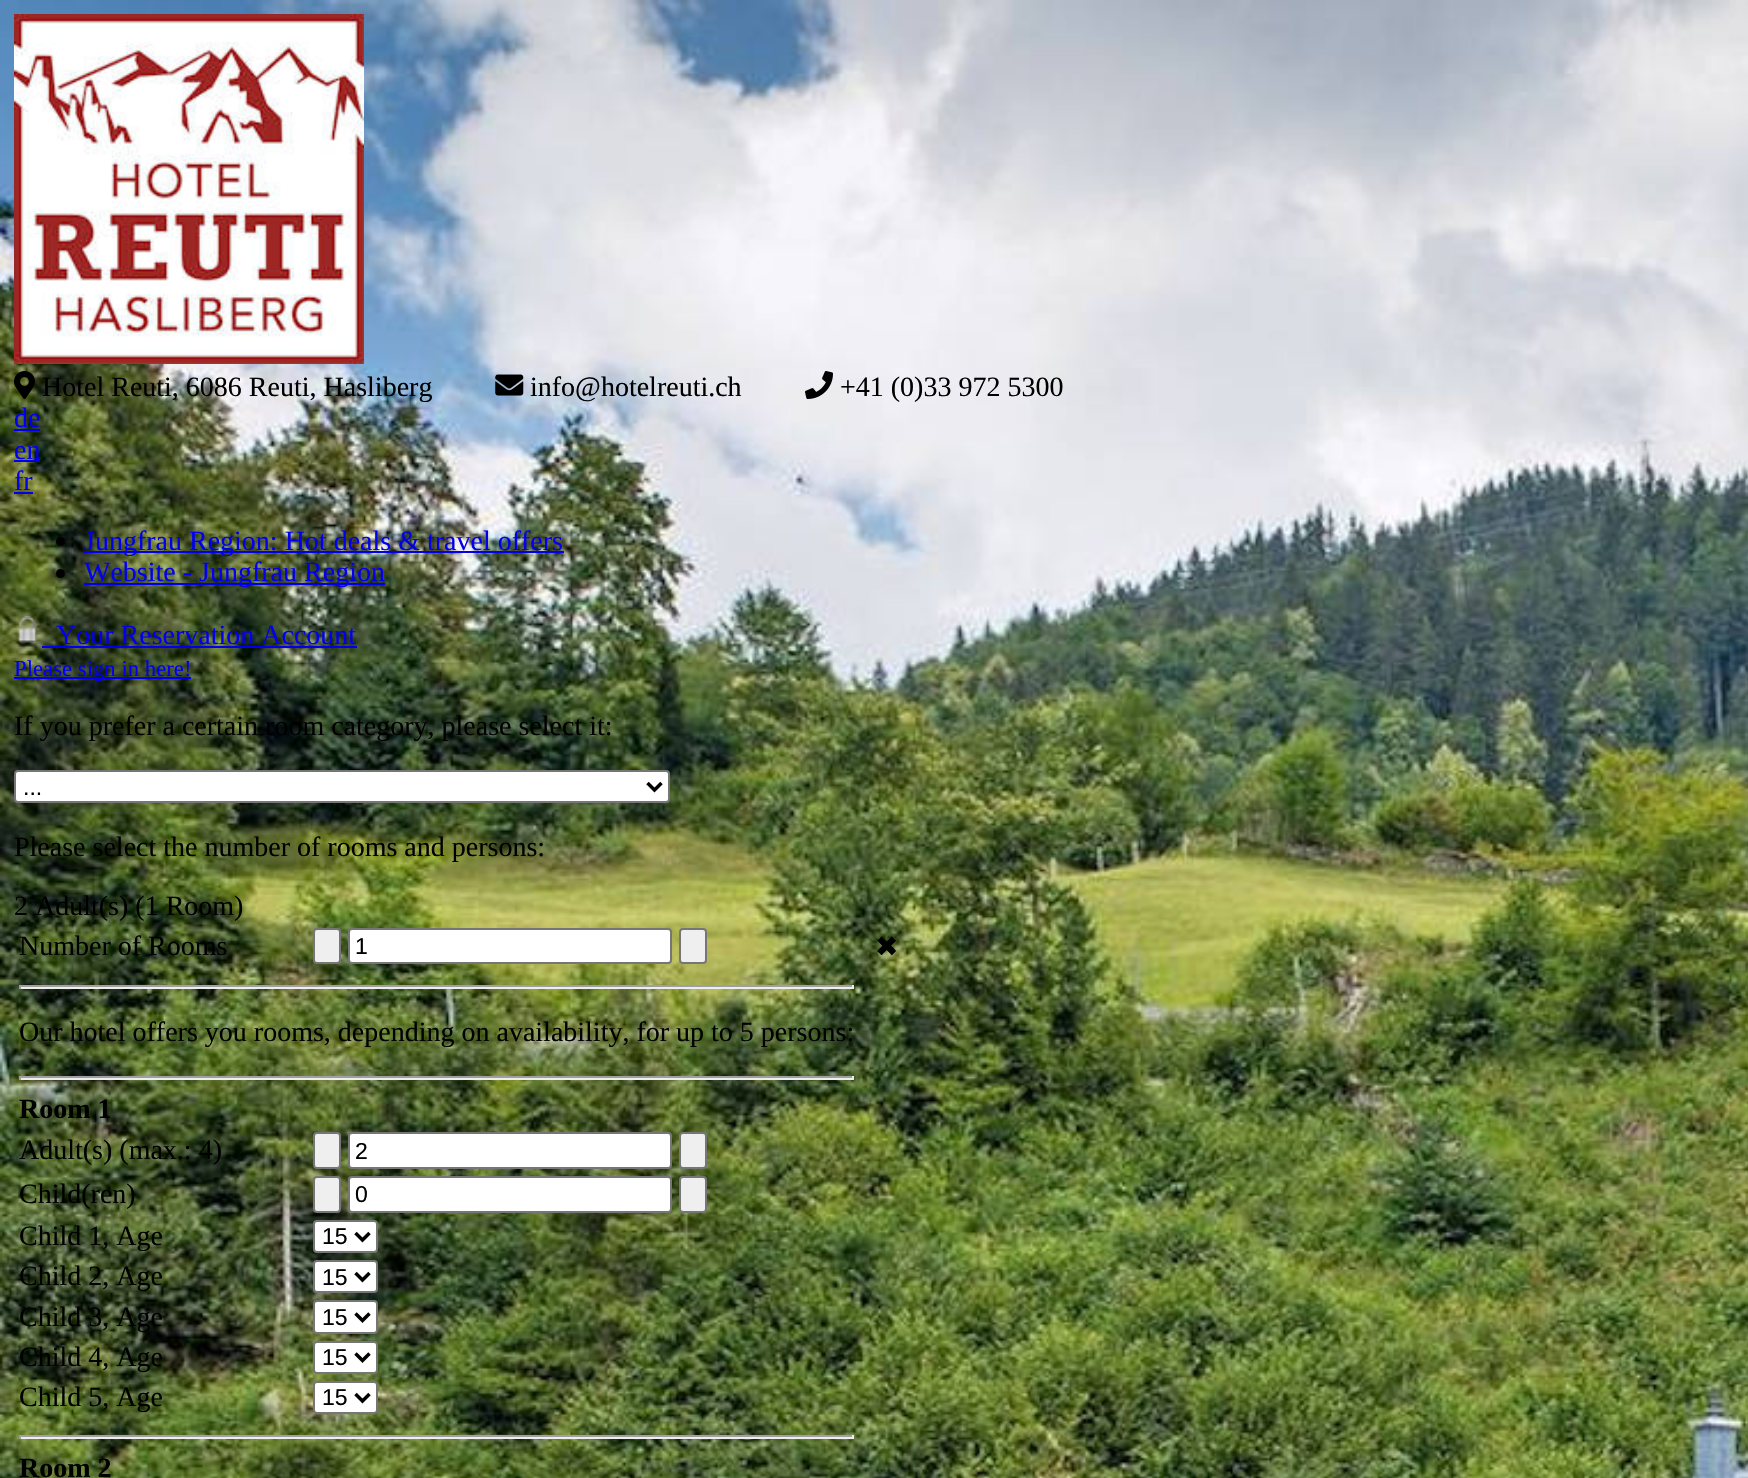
void draw(SkCanvas* c) {
SkPaint p;
p.setAntiAlias(true);
auto F=[&](const char* family, int weight, float size, bool italic = false){SkFontStyle style(weight, SkFontStyle::kNormal_Width,italic ? SkFontStyle::kItalic_Slant : SkFontStyle::kUpright_Slant);SkFont result(fontMgr->matchFamilyStyle(family, style), size);result.setSubpixel(true);return result;};
auto T=[&](const char* s, float x, float y, const SkFont& font){c->drawString(s, x, y, font, p);};
auto R=[&](float x, float y, float w, float h){c->drawRect(SkRect::MakeXYWH(x, y, w, h), p);};
auto I=[&](const char* path, float x, float y, float w, float h){auto image = SkImages::DeferredFromEncodedData(SkData::MakeFromFileName(path));c->drawImageRect(image, SkRect::MakeXYWH(x, y, w, h), SkSamplingOptions());};
auto P=[&](const char* data, bool evenOdd = false){SkPath result = *SkParsePath::FromSVGString(data);if (evenOdd) result.setFillType(SkPathFillType::kEvenOdd);return result;};
c->clear(0xffffffff);
I("1.png",0,0,1748,1478);
I("2.png",14,14,350,350);
I("3.png",14,371,21,28);
auto f1 = F("Liberation Serif",400,28);
p.setColor(0xff000000);
T("Hotel Reuti, 6086 Reuti, Hasliberg",42,396,f1);
I("4.png",495,374,29,22);
T("info@hotelreuti.ch",530,396,f1);
I("5.png",805,371,28,28);
T("+41 (0)33 972 5300",840,396,f1);
p.setColor(0xff0000ee);
T("de",14,427,f1);
R(14,429,26,2);
T("en",14,459,f1);
R(14,460,26,2);
T("fr",14,490,f1);
R(14,492,19,2);
p.setColor(0xff000000);
c->drawCircle(60.5,541.5,4.5,p);
p.setColor(0xff0000ee);
R(84,551,480,2);
T("Jungfrau Region: Hot deals & travel offers",84,550,f1);
p.setColor(0xff000000);
c->drawCircle(60.5,573.5,4.5,p);
p.setColor(0xff0000ee);
R(84,583,301,2);
T("Website - Jungfrau Region",84,581,f1);
I("6.png",17,616,21,28);
T("Your Reservation Account",56,644,f1);
R(42,646,315,2);
R(14,677,177,2);
auto f2 = F("Liberation Serif",400,22.75);
T("Please sign in here!",14,676,f2);
p.setColor(0xff000000);
T("If you prefer a certain room category, please select it:",14,735,f1);
p.setColor(0xffffffff);
c->drawRoundRect(SkRect::MakeXYWH(15,771,654,31),3,3,p);
p.setStroke(true);
p.setStrokeWidth(2);
p.setColor(0xff767676);
c->drawRoundRect(SkRect::MakeXYWH(15,771,654,31),3,3,p);
p.setStrokeWidth(3.5);
p.setColor(0xff000000);
c->drawPath(P("M647.5 783l7 7l7-7"),p);
auto f3 = F("Liberation Sans",400,23);
p.setStroke(false);
T("...",23,795,f3);
T("Please select the number of rooms and persons:",14,856,f1);
T("2 Adult(s) (1 Room)",14,915,f1);
T("Number of Rooms",19,955,f1);
p.setColor(0xffefefef);
c->drawRoundRect(SkRect::MakeXYWH(314,929,26,34),3,3,p);
p.setStroke(true);
p.setStrokeWidth(2);
p.setColor(0xff767676);
c->drawRoundRect(SkRect::MakeXYWH(314,929,26,34),3,3,p);
p.setStroke(false);
p.setColor(0xffffffff);
c->drawRoundRect(SkRect::MakeXYWH(349,929,322,34),3,3,p);
p.setStroke(true);
p.setColor(0xff767676);
c->drawRoundRect(SkRect::MakeXYWH(349,929,322,34),3,3,p);
p.setStroke(false);
p.setColor(0xff000000);
T("1",355,954,f3);
p.setColor(0xffefefef);
c->drawRoundRect(SkRect::MakeXYWH(680,929,26,34),3,3,p);
p.setStroke(true);
p.setColor(0xff767676);
c->drawRoundRect(SkRect::MakeXYWH(680,929,26,34),3,3,p);
auto f4 = F("DejaVu Sans",400,28);
p.setStroke(false);
p.setColor(0xff000000);
T("✖",875,956,f4);
p.setColor(0xff9f9f9f);
R(19,985,835,2);
p.setColor(0xffeeeeee);
R(852,985,2,4);
R(19,987,835,2);
p.setColor(0xff9f9f9f);
R(19,985,2,4);
p.setColor(0xff000000);
T("Our hotel offers you rooms, depending on availability, for up to 5 persons:",19,1041,f1);
p.setColor(0xff9f9f9f);
R(19,1076,835,2);
p.setColor(0xffeeeeee);
R(852,1076,2,4);
R(19,1078,835,2);
p.setColor(0xff9f9f9f);
R(19,1076,2,4);
auto f5 = F("Liberation Serif",700,28);
p.setColor(0xff000000);
T("Room 1",19,1118,f5);
T("Adult(s) (max.: 4)",19,1159,f1);
p.setColor(0xffefefef);
c->drawRoundRect(SkRect::MakeXYWH(314,1133,26,35),3,3,p);
p.setStroke(true);
p.setColor(0xff767676);
c->drawRoundRect(SkRect::MakeXYWH(314,1133,26,35),3,3,p);
p.setStroke(false);
p.setColor(0xffffffff);
c->drawRoundRect(SkRect::MakeXYWH(349,1133,322,35),3,3,p);
p.setStroke(true);
p.setColor(0xff767676);
c->drawRoundRect(SkRect::MakeXYWH(349,1133,322,35),3,3,p);
p.setStroke(false);
p.setColor(0xff000000);
T("2",355,1159,f3);
p.setColor(0xffefefef);
c->drawRoundRect(SkRect::MakeXYWH(680,1133,26,35),3,3,p);
p.setStroke(true);
p.setColor(0xff767676);
c->drawRoundRect(SkRect::MakeXYWH(680,1133,26,35),3,3,p);
p.setStroke(false);
p.setColor(0xff000000);
T("Child(ren)",19,1203,f1);
p.setColor(0xffefefef);
c->drawRoundRect(SkRect::MakeXYWH(314,1177,26,35),3,3,p);
p.setStroke(true);
p.setColor(0xff767676);
c->drawRoundRect(SkRect::MakeXYWH(314,1177,26,35),3,3,p);
p.setStroke(false);
p.setColor(0xffffffff);
c->drawRoundRect(SkRect::MakeXYWH(349,1177,322,35),3,3,p);
p.setStroke(true);
p.setColor(0xff767676);
c->drawRoundRect(SkRect::MakeXYWH(349,1177,322,35),3,3,p);
p.setStroke(false);
p.setColor(0xff000000);
T("0",355,1202,f3);
p.setColor(0xffefefef);
c->drawRoundRect(SkRect::MakeXYWH(680,1177,26,35),3,3,p);
p.setStroke(true);
p.setColor(0xff767676);
c->drawRoundRect(SkRect::MakeXYWH(680,1177,26,35),3,3,p);
p.setStroke(false);
p.setColor(0xff000000);
T("Child 1, Age",19,1245,f1);
p.setColor(0xffffffff);
c->drawRoundRect(SkRect::MakeXYWH(314,1221,63,31),3,3,p);
p.setStroke(true);
p.setColor(0xff767676);
c->drawRoundRect(SkRect::MakeXYWH(314,1221,63,31),3,3,p);
p.setStrokeWidth(3.5);
p.setColor(0xff000000);
c->drawPath(P("M355.5 1233l7 7l7-7"),p);
p.setStroke(false);
T("15",322,1244,f3);
T("Child 2, Age",19,1285,f1);
p.setColor(0xffffffff);
c->drawRoundRect(SkRect::MakeXYWH(314,1261,63,31),3,3,p);
p.setStroke(true);
p.setStrokeWidth(2);
p.setColor(0xff767676);
c->drawRoundRect(SkRect::MakeXYWH(314,1261,63,31),3,3,p);
p.setStrokeWidth(3.5);
p.setColor(0xff000000);
c->drawPath(P("M355.5 1273l7 7l7-7"),p);
p.setStroke(false);
T("15",322,1285,f3);
T("Child 3, Age",19,1326,f1);
p.setColor(0xffffffff);
c->drawRoundRect(SkRect::MakeXYWH(314,1301,63,32),3,3,p);
p.setStroke(true);
p.setStrokeWidth(2);
p.setColor(0xff767676);
c->drawRoundRect(SkRect::MakeXYWH(314,1301,63,32),3,3,p);
p.setStrokeWidth(3.5);
p.setColor(0xff000000);
c->drawPath(P("M355.5 1313.5l7 7l7-7"),p);
p.setStroke(false);
T("15",322,1325,f3);
T("Child 4, Age",19,1366,f1);
p.setColor(0xffffffff);
c->drawRoundRect(SkRect::MakeXYWH(314,1342,63,31),3,3,p);
p.setStroke(true);
p.setStrokeWidth(2);
p.setColor(0xff767676);
c->drawRoundRect(SkRect::MakeXYWH(314,1342,63,31),3,3,p);
p.setStrokeWidth(3.5);
p.setColor(0xff000000);
c->drawPath(P("M355.5 1353.5l7 7l7-7"),p);
p.setStroke(false);
T("15",322,1365,f3);
T("Child 5, Age",19,1406,f1);
p.setColor(0xffffffff);
c->drawRoundRect(SkRect::MakeXYWH(314,1382,63,31),3,3,p);
p.setStroke(true);
p.setStrokeWidth(2);
p.setColor(0xff767676);
c->drawRoundRect(SkRect::MakeXYWH(314,1382,63,31),3,3,p);
p.setStrokeWidth(3.5);
p.setColor(0xff000000);
c->drawPath(P("M355.5 1394l7 7l7-7"),p);
p.setStroke(false);
T("15",322,1405,f3);
p.setColor(0xff9f9f9f);
R(19,1435,835,2);
p.setColor(0xffeeeeee);
R(852,1435,2,4);
R(19,1437,835,2);
p.setColor(0xff9f9f9f);
R(19,1435,2,4);
p.setColor(0xff000000);
T("Room 2",19,1477,f5);
}
